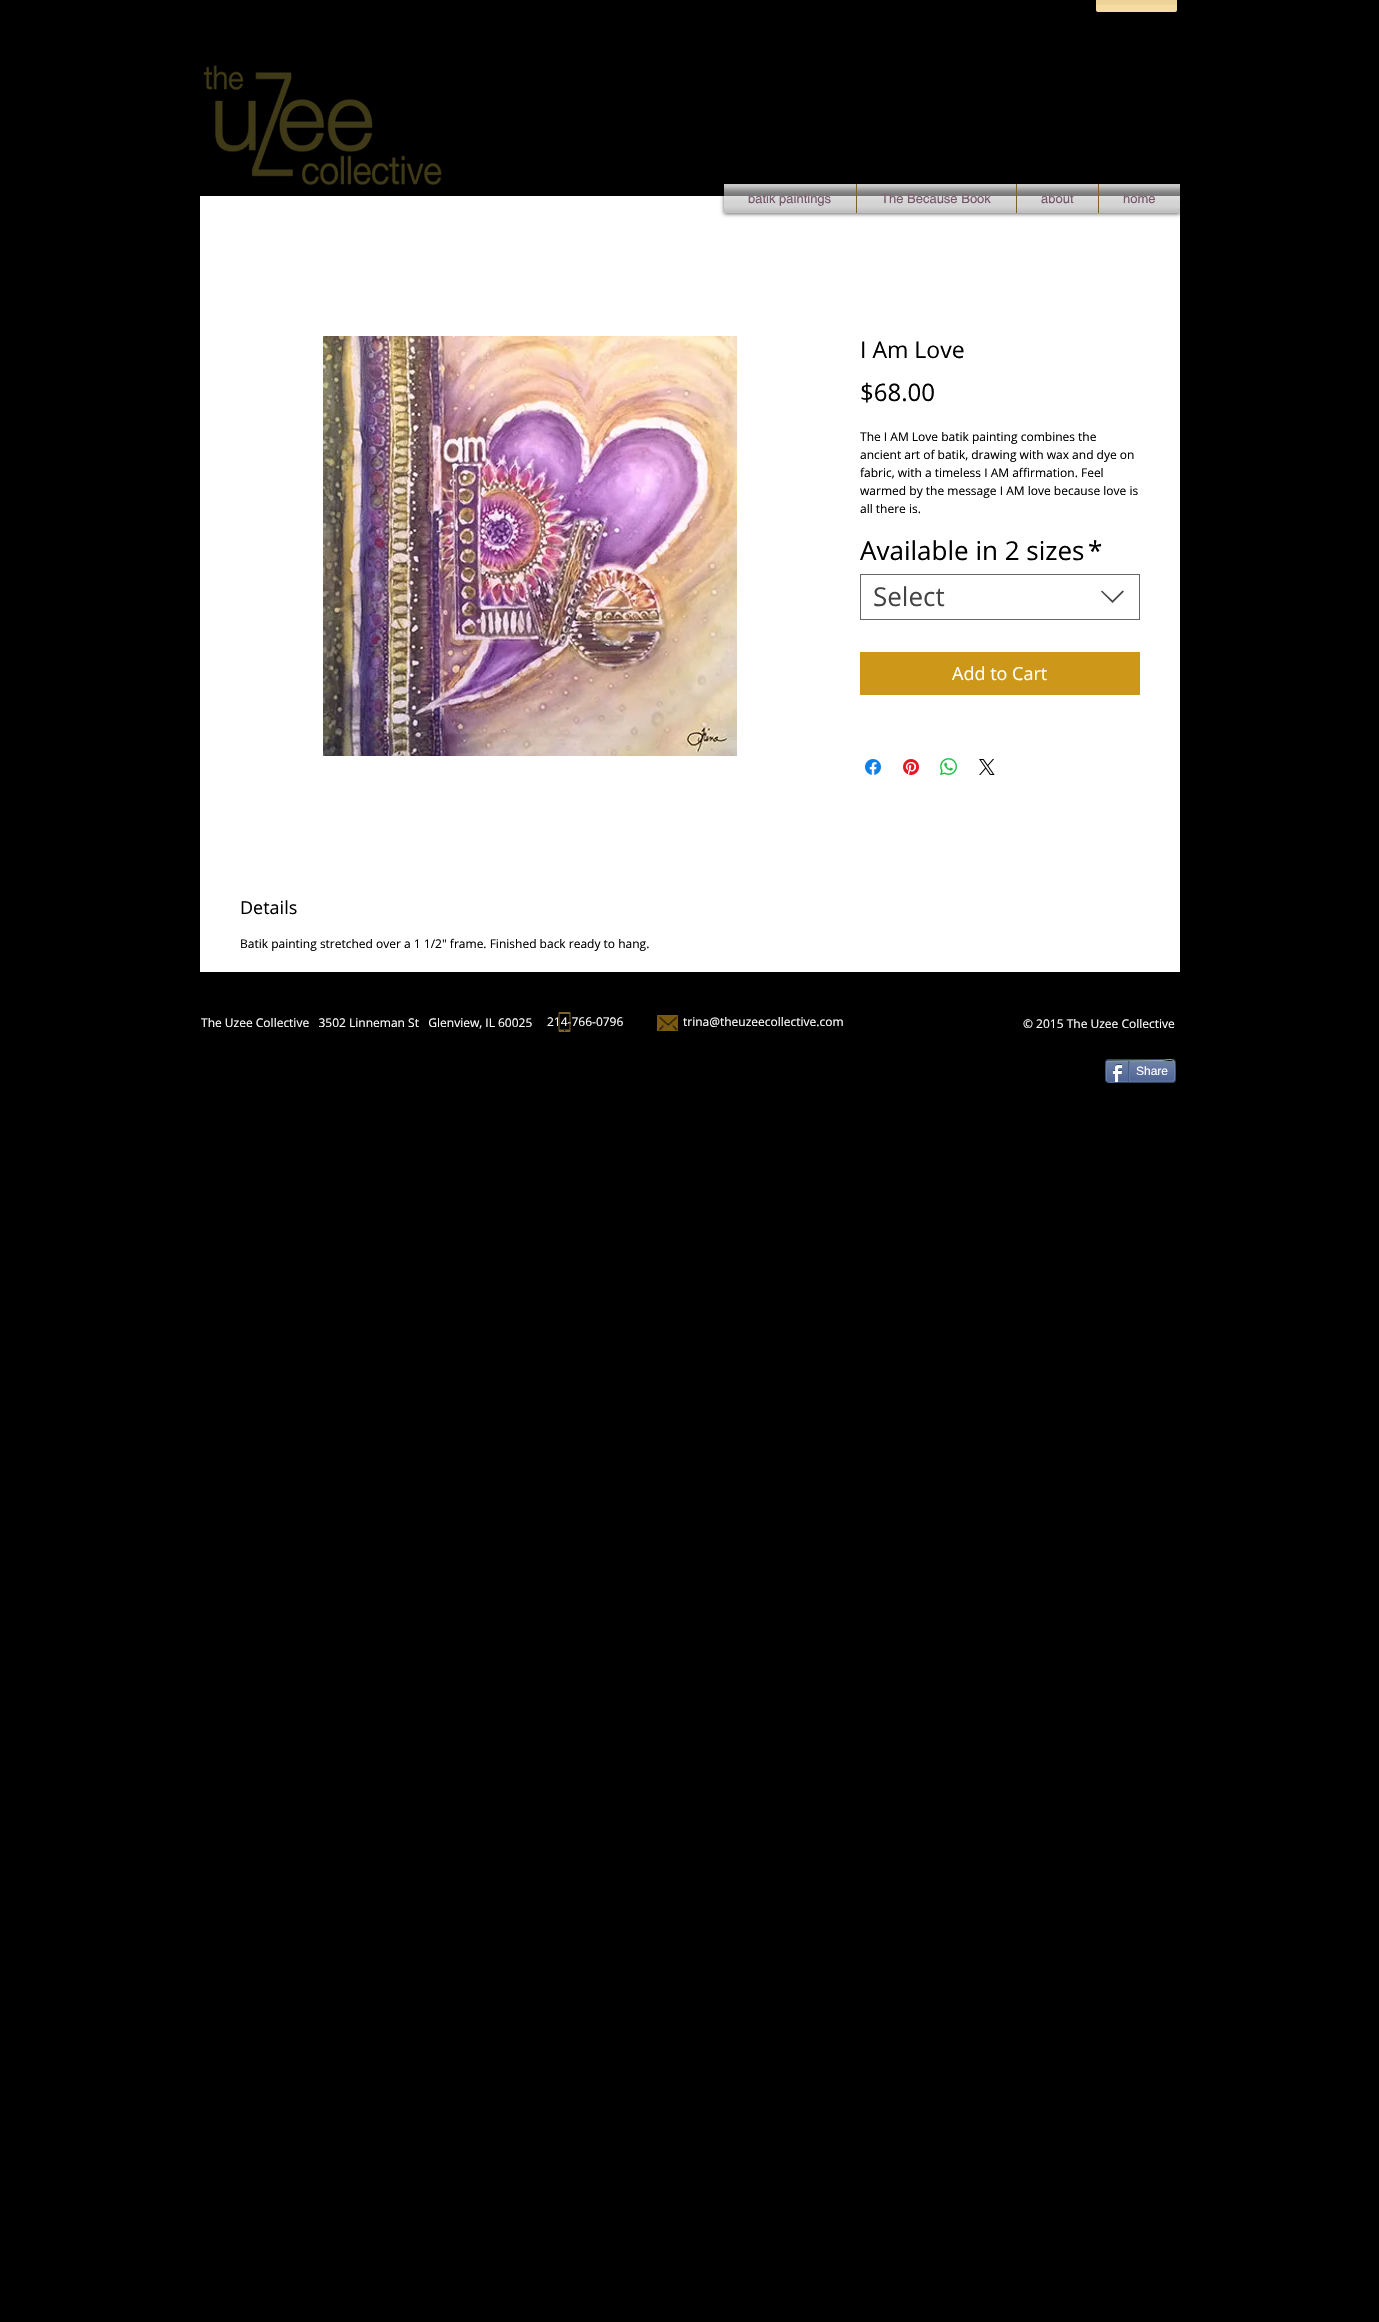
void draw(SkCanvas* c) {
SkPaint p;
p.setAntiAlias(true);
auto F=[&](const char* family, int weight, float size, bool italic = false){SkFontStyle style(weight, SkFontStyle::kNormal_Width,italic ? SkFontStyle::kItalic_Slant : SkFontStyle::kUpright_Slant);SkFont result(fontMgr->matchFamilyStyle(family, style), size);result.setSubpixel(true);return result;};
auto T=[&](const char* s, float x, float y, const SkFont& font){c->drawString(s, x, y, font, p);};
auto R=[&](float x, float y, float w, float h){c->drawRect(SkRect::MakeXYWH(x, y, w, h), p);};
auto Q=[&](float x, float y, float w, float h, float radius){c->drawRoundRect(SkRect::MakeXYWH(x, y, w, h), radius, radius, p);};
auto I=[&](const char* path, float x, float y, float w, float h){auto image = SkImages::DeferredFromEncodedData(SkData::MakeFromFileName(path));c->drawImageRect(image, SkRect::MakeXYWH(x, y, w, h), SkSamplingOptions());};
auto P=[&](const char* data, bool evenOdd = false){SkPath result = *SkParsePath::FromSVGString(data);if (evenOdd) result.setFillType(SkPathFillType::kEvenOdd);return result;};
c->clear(0xff000000);
p.setColor(0xfff4d38b);
Q(1096,-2,81,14,2);
I("1.png",1096,0,81,5);
I("2.png",1096,0,81,12);
I("3.png",203,65,239,120);
p.setColor(0xffffffff);
R(200,196,980,776);
c->save();
c->clipPath(P("M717 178h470v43h-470zm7 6h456v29h-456z",true),true);
p.setColor(0x99000000);
p.setMaskFilter(SkMaskFilter::MakeBlur(kNormal_SkBlurStyle, 2));
c->drawRect(SkRect::MakeXYWH(724,185,456,29),p);
p.setMaskFilter(nullptr);
c->restore();
I("4.png",724,184,456,12);
I("5.png",724,184,456,29);
auto f1 = F("helvetica",400,13);
p.setColor(0xff582b45);
T("batik paintings",748,203,f1);
I("6.png",724,184,132,29);
I("7.png",724,184,132,29);
p.setColor(0xff7d6327);
R(856,184,1,29);
p.setColor(0xff582b45);
T("The Because Book",881,203,f1);
I("8.png",857,184,159,29);
I("9.png",857,184,159,29);
p.setColor(0xff7d6327);
R(1016,184,1,29);
p.setColor(0xff582b45);
T("about",1041,203,f1);
I("10.png",1017,184,81,29);
I("11.png",1017,184,81,29);
p.setColor(0xff7d6327);
R(1098,184,1,29);
p.setColor(0xff582b45);
T("home",1123,203,f1);
I("12.png",1099,184,81,29);
I("13.png",1099,184,81,29);
I("14.png",323,336,414,420);
auto f2 = F("Open Sans",400,23);
p.setColor(0xff000000);
T("I Am Love",860,358,f2);
auto f3 = F("Open Sans",400,24);
T("$68.00",860,401,f3);
auto f4 = F("Open Sans",400,12);
T("The I AM Love batik painting combines the",860,441,f4);
T("ancient art of batik, drawing with wax and dye on",860,459,f4);
T("fabric, with a timeless I AM affirmation. Feel",860,477,f4);
T("warmed by the message I AM love because love is",860,495,f4);
T("all there is.",860,513,f4);
auto f5 = F("Open Sans",400,26);
T("Available in 2 sizes",860,560,f5);
T("*",1088,560,f5);
p.setStroke(true);
p.setStrokeWidth(1);
p.setColor(0xff666666);
c->drawRect(SkRect::MakeXYWH(860.5,574.5,279,45),p);
p.setStroke(false);
p.setColor(0xff444444);
T("Select",873,606,f5);
c->drawPath(P("M1122.5 590.5l1.5 1l-11.5 11.5l-11.5-11.5l1-1l10.5 10z",true),p);
p.setColor(0xffcd971a);
R(860,652,280,43);
auto f6 = F("Open Sans",400,18);
p.setColor(0xffffffff);
T("Add to Cart",952,680,f6);
I("15.png",865,759,16,16);
I("16.png",903,759,16,16);
I("17.png",940,758,17,17);
I("18.png",979,759,16,16);
p.setColor(0xff000000);
T("Details",240,914,f6);
T("Batik painting stretched over a 1 1/2\" frame. Finished back ready to hang.",240,948,f4);
p.setColor(0xffffffff);
T("The Uzee Collective   3502 Linneman St   Glenview, IL 60025",201,1027,f4);
T("214-766-0796",547,1026,f4);
I("19.png",558,1012,13,20);
I("20.png",657,1015,21,16);
T("trina@theuzeecollective.com",683,1026,f4);
T("© 2015 The Uzee Collective",1023,1028,f4);
p.setStroke(true);
p.setColor(0xff2d4565);
c->drawRoundRect(SkRect::MakeXYWH(1105.5,1059.5,70,23),2.5,2.5,p);
I("21.png",1106,1061,69,21);
p.setColor(0xff9aabc6);
c->drawPath(P("M1107 1061l55-.5c4 0 9-2.5 12 .5"),p);
p.setColor(0xff6f83ad);
c->drawPath(P("M1174 1061c1 .5 1 19.5 0 20"),p);
p.setColor(0xff6176a3);
c->drawPath(P("M1174 1081l-55 .5c-4 0-9 2.5-12-.5"),p);
p.setColor(0xff6f83ad);
c->drawPath(P("M1107 1081c-1-.5-1-19.5 0-20"),p);
I("22.png",1112,1064,10,18);
p.setStroke(false);
p.setColor(0xff425e85);
R(1128,1061,1,21);
auto f7 = F("Liberation Sans",400,12);
p.setColor(0xffffffff);
T("Share",1136,1075,f7);
p.setColor(0xff6176a3);
R(1129,1061,1,20);
}
